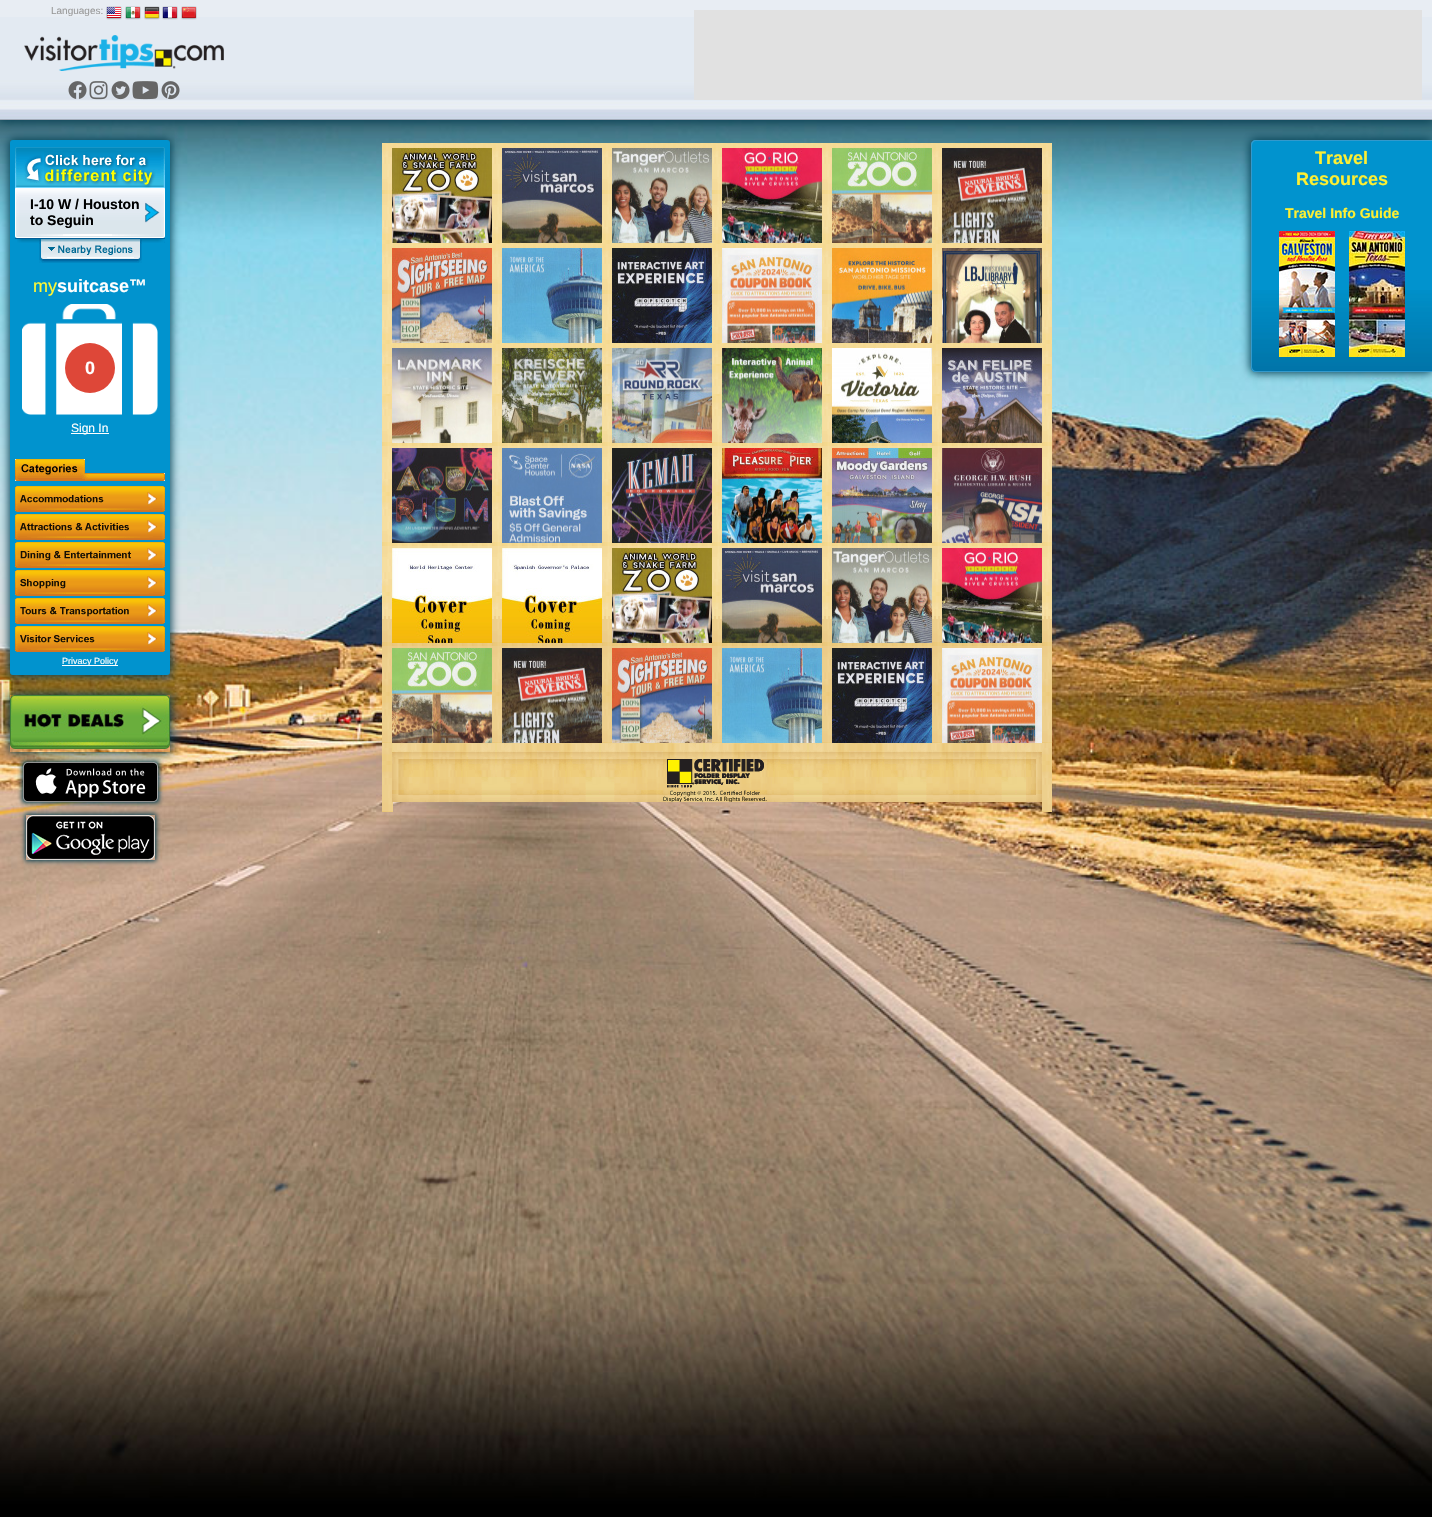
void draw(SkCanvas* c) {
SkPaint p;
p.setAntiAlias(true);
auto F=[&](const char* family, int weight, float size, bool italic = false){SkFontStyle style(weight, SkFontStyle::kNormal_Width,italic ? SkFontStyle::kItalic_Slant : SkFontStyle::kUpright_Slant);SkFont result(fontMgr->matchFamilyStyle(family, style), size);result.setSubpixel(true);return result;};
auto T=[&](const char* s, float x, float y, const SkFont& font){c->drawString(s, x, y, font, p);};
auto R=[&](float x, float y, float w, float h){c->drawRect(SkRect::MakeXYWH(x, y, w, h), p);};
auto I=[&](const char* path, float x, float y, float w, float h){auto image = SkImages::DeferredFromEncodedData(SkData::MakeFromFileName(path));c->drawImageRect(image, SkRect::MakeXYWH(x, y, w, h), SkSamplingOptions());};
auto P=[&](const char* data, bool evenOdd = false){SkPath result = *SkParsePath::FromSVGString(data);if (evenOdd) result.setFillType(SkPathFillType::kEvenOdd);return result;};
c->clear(0xffffffff);
I("13.png",0,120,1432,1397);
p.setColor(0xff003c50);
p.setMaskFilter(SkMaskFilter::MakeBlur(kNormal_SkBlurStyle, 5));
c->drawRect(SkRect::MakeXYWH(-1,-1,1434,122),p);
p.setMaskFilter(nullptr);
p.setColor(0xffe8edf3);
R(0,0,1432,17);
I("1.png",0,17,1432,103);
auto f1 = F("Liberation Sans",400,10);
p.setColor(0xff999999);
T("Languages:",51,14,f1);
I("2.png",106,6,16,14);
I("3.png",125,6,16,14);
I("4.png",144,6,16,14);
I("5.png",162,6,16,14);
I("6.png",181,6,16,14);
p.setColor(0xffe1e1e1);
R(694,10,728,90);
I("7.png",24,35,200,36);
I("8.png",68,81,19,18);
I("9.png",89,81,19,19);
I("10.png",111,81,19,19);
I("11.png",132,81,27,19);
I("12.png",161,81,19,19);
I("14.png",382,143,670,600);
I("15.png",392,148,100,95);
I("16.png",502,148,100,95);
I("17.png",612,148,100,95);
I("18.png",722,148,100,95);
I("19.png",832,148,100,95);
I("20.png",942,148,100,95);
I("21.png",392,248,100,95);
I("22.png",502,248,100,95);
I("23.png",612,248,100,95);
I("24.png",722,248,100,95);
I("25.png",832,248,100,95);
I("26.png",942,248,100,95);
I("27.png",392,348,100,95);
I("28.png",502,348,100,95);
I("29.png",612,348,100,95);
I("30.png",722,348,100,95);
I("31.png",832,348,100,95);
I("32.png",942,348,100,95);
I("33.png",392,448,100,95);
I("34.png",502,448,100,95);
I("35.png",612,448,100,95);
I("36.png",722,448,100,95);
I("37.png",832,448,100,95);
I("38.png",942,448,100,95);
I("39.png",392,548,100,95);
I("40.png",502,548,100,95);
I("15.png",612,548,100,95);
I("16.png",722,548,100,95);
I("17.png",832,548,100,95);
I("18.png",942,548,100,95);
I("19.png",392,648,100,95);
I("20.png",502,648,100,95);
I("21.png",612,648,100,95);
I("22.png",722,648,100,95);
I("23.png",832,648,100,95);
I("24.png",942,648,100,95);
I("41.png",382,743,11,69);
I("42.png",1042,743,10,69);
I("43.png",392,743,650,59);
I("44.png",392,752,17,50);
I("45.png",1026,752,16,50);
I("46.png",663,759,104,43);
p.setColor(0xff003c50);
p.setMaskFilter(SkMaskFilter::MakeBlur(kNormal_SkBlurStyle, 5));
c->drawRoundRect(SkRect::MakeXYWH(1250,139,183,234),6,6,p);
p.setMaskFilter(nullptr);
p.setColor(0xff0193ce);
c->drawPath(P("M1256 140h176v232h-176c-3 0-5-2-5-5v-222c0-3 2-5 5-5z"),p);
I("47.png",1251,290,181,81);
p.setColor(0xff3399cc);
c->drawPath(P("M1256 140h176v232h-176c-3 0-5-2-5-5v-222c0-3 2-5 5-5zm0 1h176v230h-176c-2 0-4-2-4-4v-222c0-2 2-4 4-4z",true),p);
auto f2 = F("Liberation Sans",700,18);
p.setColor(0xfffeef32);
T("Travel",1315,164,f2);
T("Resources",1296,185,f2);
auto f3 = F("Liberation Sans",700,14);
T("Travel Info Guide",1285,218,f3);
I("48.png",1279,231,56,126);
I("49.png",1349,231,56,126);
p.setColor(0xff003c50);
p.setMaskFilter(SkMaskFilter::MakeBlur(kNormal_SkBlurStyle, 5));
c->drawRoundRect(SkRect::MakeXYWH(9,139,162,537),4,4,p);
p.setMaskFilter(nullptr);
p.setColor(0xff0193ce);
c->drawRoundRect(SkRect::MakeXYWH(11,141,158,533),2,2,p);
p.setStroke(true);
p.setStrokeWidth(2);
c->drawRoundRect(SkRect::MakeXYWH(11,141,158,533),2,2,p);
I("50.png",15,233,150,5);
I("51.png",15,147,150,86);
I("52.png",145,202,15,21);
p.setStroke(false);
p.setColor(0xff000000);
T("I-10 W / Houston",30,209,f3);
T("to Seguin",30,225,f3);
I("53.png",17,239,148,4);
p.setColor(0xff005e97);
R(15,238,150,1);
I("54.png",39,239,103,24);
auto f4 = F("Liberation Sans",400,18);
p.setColor(0xfffff835);
T("my",33,292,f4);
p.setColor(0xffffffff);
T("suitcase™",57,292,f2);
I("55.png",22,304,136,111);
p.setColor(0xffde4738);
c->drawCircle(90,368,25,p);
p.setColor(0xffffffff);
T("0",85,374,f2);
R(71,433,38,1);
auto f5 = F("Liberation Sans",400,12);
T("Sign In",71,432,f5);
I("56.png",15,459,150,22);
I("57.png",15,486,150,26);
I("58.png",20,495,84,8);
I("57.png",15,514,150,26);
I("59.png",20,523,109,8);
I("57.png",15,542,150,26);
I("60.png",20,551,111,10);
I("57.png",15,570,150,26);
I("61.png",20,579,46,10);
I("57.png",15,598,150,26);
I("62.png",20,607,109,10);
I("57.png",15,626,150,26);
I("63.png",20,635,75,8);
R(62,665,56,1);
auto f6 = F("Liberation Sans",400,9);
T("Privacy Policy",62,664,f6);
c->save();
c->clipPath(P("M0 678h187v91h-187zm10 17h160v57h-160z",true),true);
p.setColor(0xff003c50);
p.setMaskFilter(SkMaskFilter::MakeBlur(kNormal_SkBlurStyle, 5));
c->drawRect(SkRect::MakeXYWH(9,694,162,59),p);
p.setMaskFilter(nullptr);
c->restore();
I("64.png",10,695,160,54);
p.setMaskFilter(SkMaskFilter::MakeBlur(kNormal_SkBlurStyle, 2.5));
c->drawRect(SkRect::MakeXYWH(22,761,137,42),p);
p.setMaskFilter(nullptr);
I("65.png",23,762,135,40);
c->save();
c->clipPath(P("M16 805h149v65h-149zm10 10h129v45h-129z",true),true);
p.setMaskFilter(SkMaskFilter::MakeBlur(kNormal_SkBlurStyle, 2.5));
c->drawRect(SkRect::MakeXYWH(25,814,131,47),p);
p.setMaskFilter(nullptr);
c->restore();
I("66.png",26,815,129,45);
}
